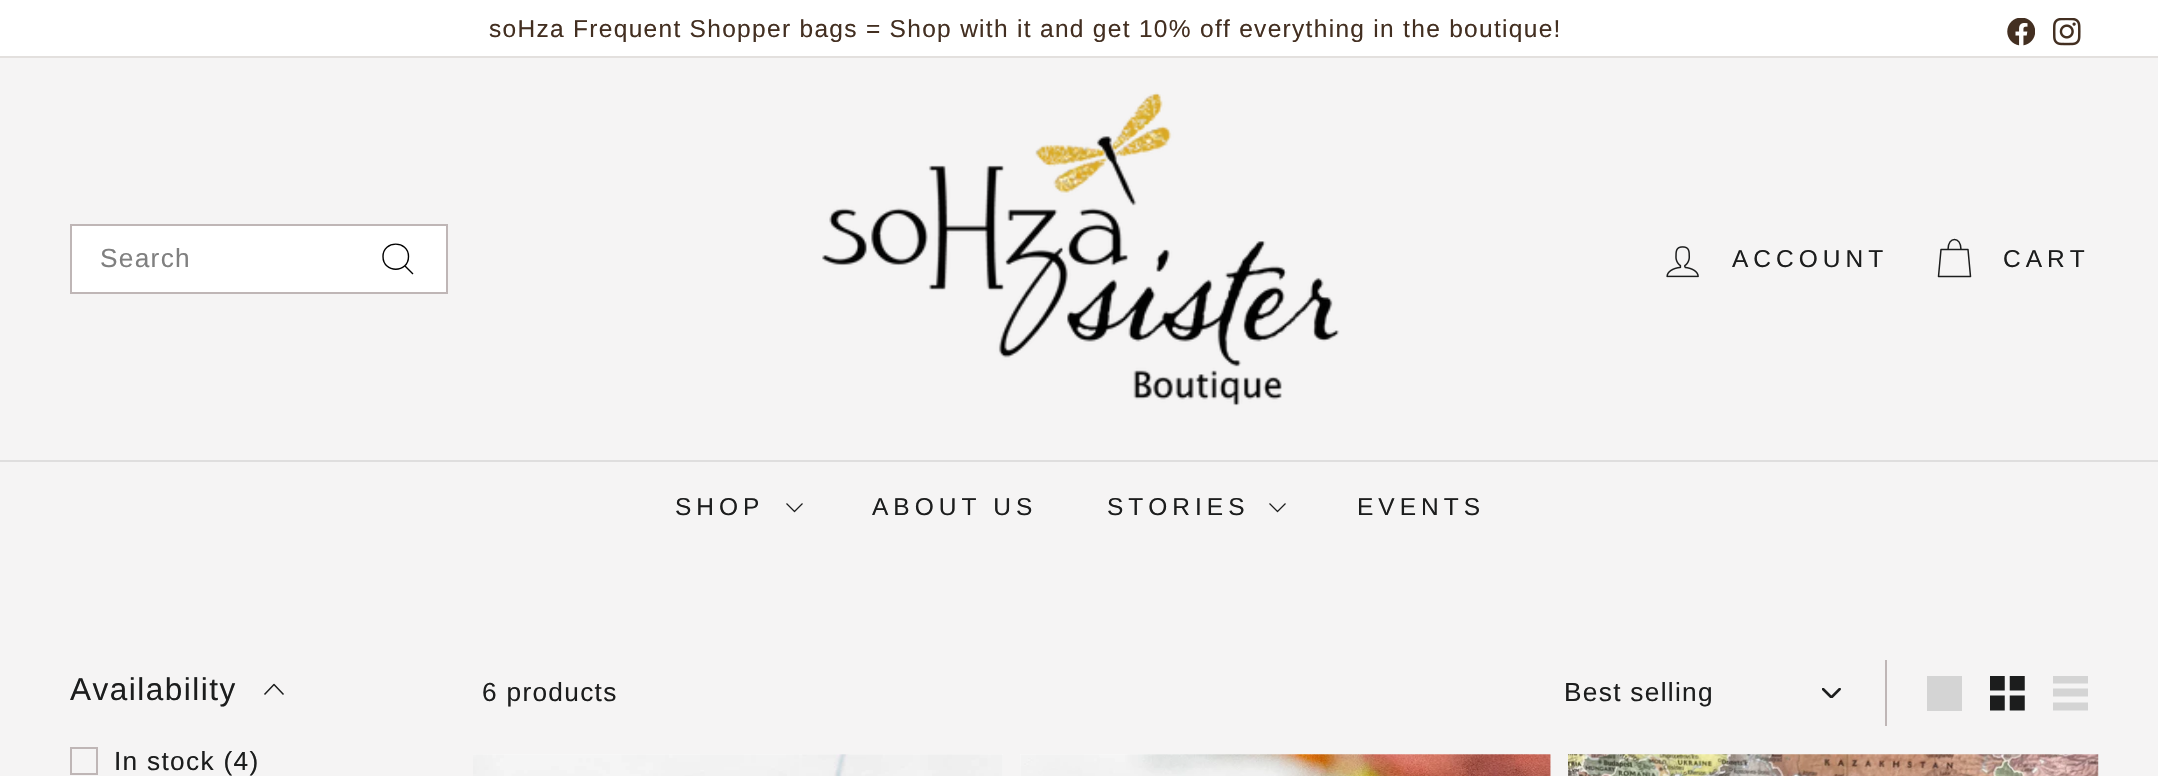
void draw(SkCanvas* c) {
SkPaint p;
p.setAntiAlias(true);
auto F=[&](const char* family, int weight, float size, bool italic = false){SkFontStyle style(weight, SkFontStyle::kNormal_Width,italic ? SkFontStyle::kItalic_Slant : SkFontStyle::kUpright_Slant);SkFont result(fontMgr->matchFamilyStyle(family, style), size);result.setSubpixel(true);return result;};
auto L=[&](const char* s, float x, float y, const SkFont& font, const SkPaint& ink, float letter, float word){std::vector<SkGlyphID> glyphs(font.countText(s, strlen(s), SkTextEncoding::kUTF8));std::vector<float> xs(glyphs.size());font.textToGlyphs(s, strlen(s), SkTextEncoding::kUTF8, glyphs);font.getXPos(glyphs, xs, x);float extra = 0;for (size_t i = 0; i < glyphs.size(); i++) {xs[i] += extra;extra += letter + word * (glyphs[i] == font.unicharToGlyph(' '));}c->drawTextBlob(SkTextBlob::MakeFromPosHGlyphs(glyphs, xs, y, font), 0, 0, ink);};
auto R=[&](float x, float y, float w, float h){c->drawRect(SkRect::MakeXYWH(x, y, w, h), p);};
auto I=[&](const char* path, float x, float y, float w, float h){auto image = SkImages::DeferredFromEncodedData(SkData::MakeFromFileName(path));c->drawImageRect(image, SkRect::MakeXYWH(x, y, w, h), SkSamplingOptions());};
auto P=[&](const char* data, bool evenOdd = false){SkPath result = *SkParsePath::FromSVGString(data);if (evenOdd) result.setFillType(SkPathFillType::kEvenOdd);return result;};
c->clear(0xfff5f4f4);
p.setColor(0xffffffff);
R(0,0,2158,56);
auto f1 = F("Liberation Sans",400,24.5);
p.setColor(0xff432f21);
L("soHza Frequent Shopper bags = Shop with it and get 10% off everything in the boutique!",489,37,f1,p,1.3,0);
I("1.png",2007,18,28,28);
I("2.png",2053,18,28,28);
p.setColor(0xffe3e0de);
R(0,56,2158,2);
p.setColor(0xffffffff);
c->drawRect(SkRect::MakeXYWH(71,225,376,68),p);
p.setStroke(true);
p.setStrokeWidth(2);
p.setColor(0xffbfb6b6);
c->drawRect(SkRect::MakeXYWH(71,225,376,68),p);
auto f2 = F("Liberation Sans",400,26.25);
p.setStroke(false);
p.setColor(0xff808080);
L("Search",100,267,f2,p,1.3,0);
p.setStroke(true);
p.setStrokeWidth(1.4);
p.setStrokeJoin(SkPaint::kRound_Join);
p.setColor(0xff000000);
c->drawPath(P("M408.5 256.5c0 17-25.5 17-25.5 0c0-16.5 25.5-16.5 25.5 0m4.5 17.5l-8-8"),p);
I("3.png",822,92,518,314);
I("4.png",1666,246,33,32);
p.setStroke(false);
p.setColor(0xff1c1d1d);
L("ACCOUNT",1732,267,f1,p,5,0);
p.setStroke(true);
p.setStrokeWidth(1.5);
c->drawPath(P("M1948 249.5c0-13.5 13-13.5 13 0m-20 0h27l2.5 27h-32z"),p);
p.setStroke(false);
L("CART",2003,267,f1,p,5,0);
p.setColor(0xffdfdede);
R(0,460,2158,2);
p.setColor(0xff1c1d1d);
L("SHOP",675,515,f1,p,5,0);
p.setStroke(true);
p.setStrokeWidth(1.2);
c->drawPath(P("M786.5 503.5l8 8l8-8"),p);
p.setStroke(false);
L("ABOUT US",872,515,f1,p,5,0);
L("STORIES",1107,515,f1,p,5,0);
p.setStroke(true);
c->drawPath(P("M1269.5 503.5l8 8l8-8"),p);
p.setStroke(false);
L("EVENTS",1357,515,f1,p,5,0);
auto f3 = F("Liberation Sans",400,31.5);
L("Availability",70,700,f3,p,1.5,0);
p.setStroke(true);
p.setStrokeWidth(1.5);
c->drawPath(P("M283.5 694.5l-9.5-10l-9.5 10"),p);
p.setStrokeWidth(2);
p.setStrokeJoin(SkPaint::kMiter_Join);
p.setColor(0xffbfb6b6);
c->drawRect(SkRect::MakeXYWH(71,748,26,26),p);
p.setStroke(false);
p.setColor(0xff1c1d1d);
L("In stock (4)",114,770,f2,p,1.3,0);
L("6 products",482,701,f2,p,1.3,0);
p.setColor(0xffbfb6b6);
R(1885,660,2,66);
I("5.png",1822,688,19,10);
p.setColor(0xff1c1d1d);
L("Best selling",1564,701,f2,p,1.3,0);
p.setColor(0xffd4d4d4);
R(1927,676,35,35);
I("6.png",1990,676,35,35);
c->save();
c->clipRect(SkRect::MakeXYWH(2053,676,35,35));
c->drawPath(P("M2053 675.5h35v8h-35zm0 13h35v8h-35zm0 14h35v8h-35z"),p);
c->restore();
p.setColor(0xffffffff);
R(473,754,530,22);
I("7.png",473,754,530,22);
R(1020,754,531,22);
I("8.png",1020,754,531,22);
I("9.png",1568,754,531,22);
}
